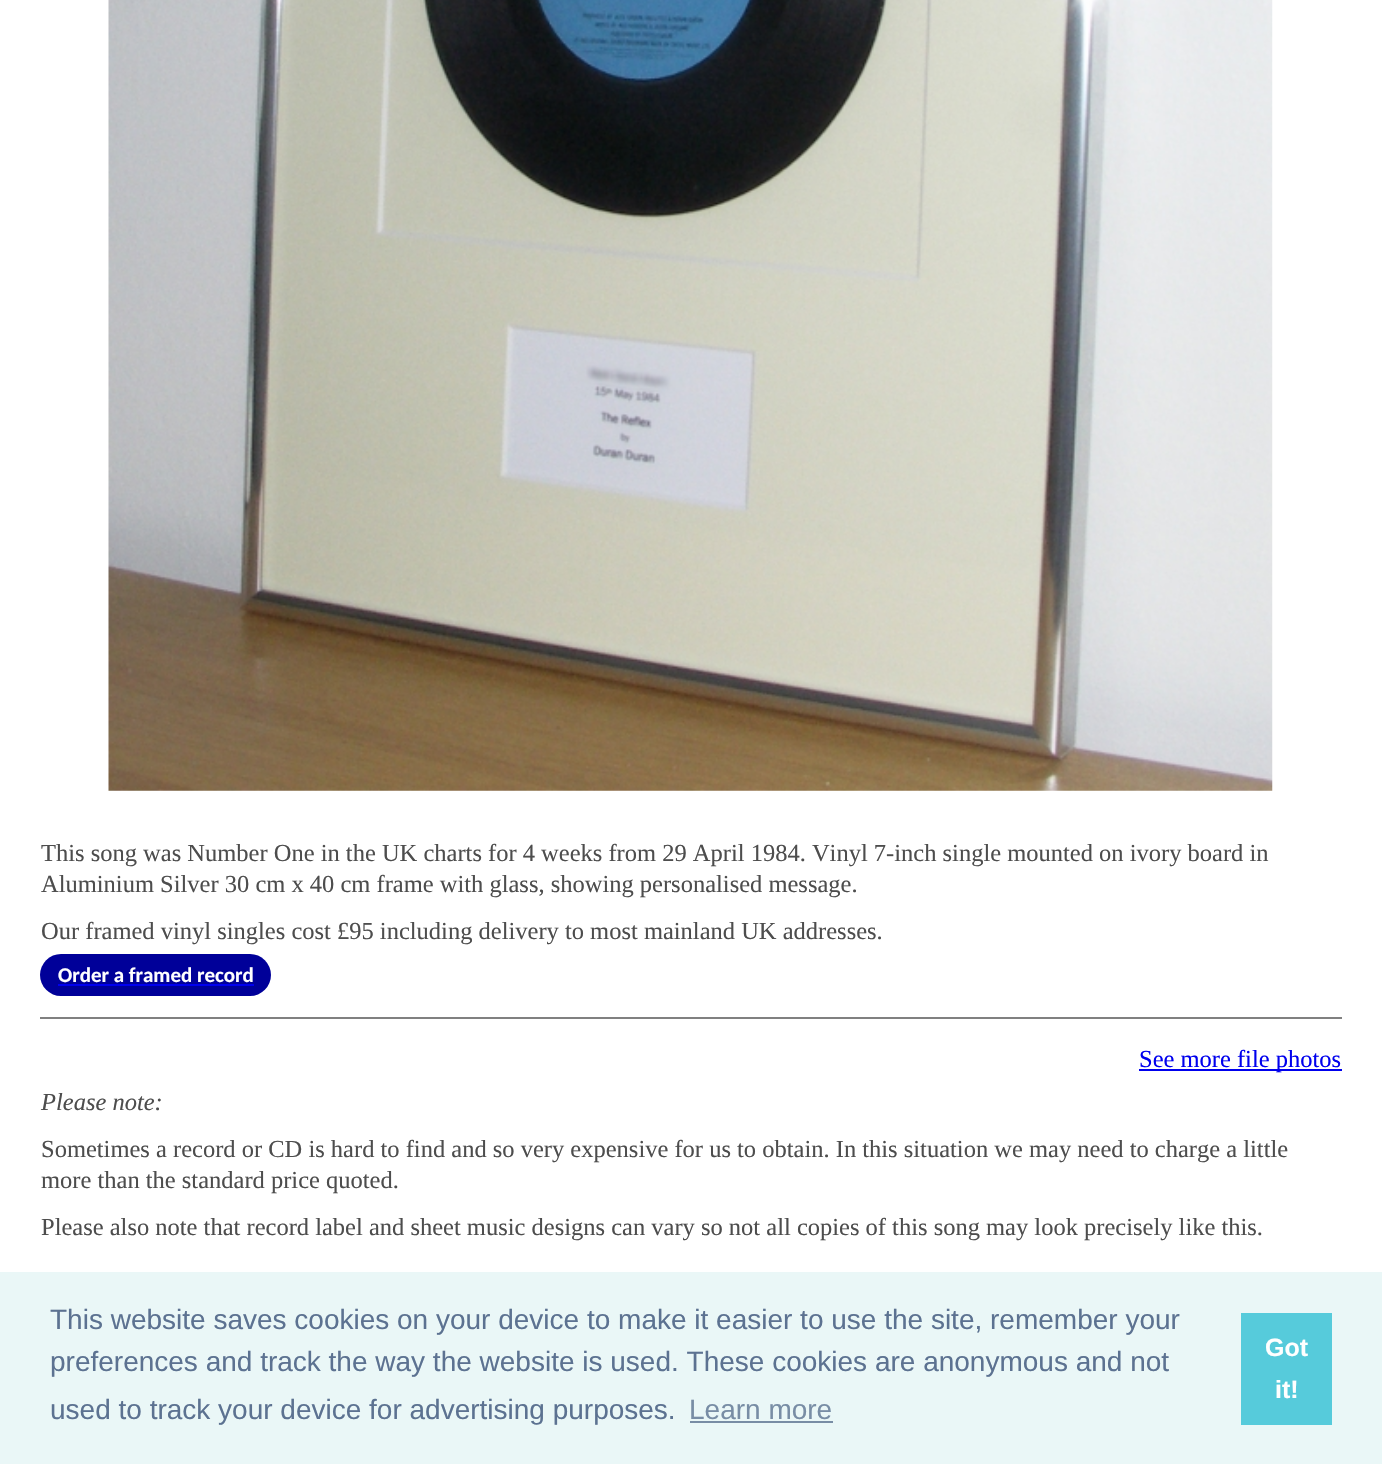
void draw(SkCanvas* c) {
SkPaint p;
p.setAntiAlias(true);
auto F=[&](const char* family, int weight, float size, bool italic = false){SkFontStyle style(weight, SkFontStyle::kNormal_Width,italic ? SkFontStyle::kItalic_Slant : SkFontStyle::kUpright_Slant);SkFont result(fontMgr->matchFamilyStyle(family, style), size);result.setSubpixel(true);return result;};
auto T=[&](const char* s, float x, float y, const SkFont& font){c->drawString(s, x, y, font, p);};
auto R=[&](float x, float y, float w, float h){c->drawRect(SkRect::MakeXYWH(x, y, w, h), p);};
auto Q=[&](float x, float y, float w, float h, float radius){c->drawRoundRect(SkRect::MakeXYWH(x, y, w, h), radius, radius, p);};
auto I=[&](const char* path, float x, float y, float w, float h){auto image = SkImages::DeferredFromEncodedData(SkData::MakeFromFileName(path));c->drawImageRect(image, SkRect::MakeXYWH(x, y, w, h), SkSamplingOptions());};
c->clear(0xffffffff);
I("1.png",108,0,1165,791);
auto f1 = F("Liberation Serif",400,24.5);
p.setColor(0xff4d4d4d);
T("This song was Number One in the UK charts for 4 weeks from 29 April 1984. Vinyl 7-inch single mounted on ivory board in",41,861,f1);
T("Aluminium Silver 30 cm x 40 cm frame with glass, showing personalised message.",41,892,f1);
T("Our framed vinyl singles cost £95 including delivery to most mainland UK addresses.",41,939,f1);
p.setColor(0xff000099);
Q(40,954,231,42,21);
auto f2 = F("Carlito",700,21);
p.setColor(0xffffffff);
T("Order a framed record",58,982,f2);
p.setColor(0xff0000ee);
R(58,984,196,2);
p.setColor(0xff808080);
R(40,1017,1302,2);
p.setColor(0xff0000ee);
R(1139,1069,203,2);
T("See more file photos",1139,1067,f1);
auto f3 = F("Liberation Serif",400,24.5,true);
p.setColor(0xff4d4d4d);
T("Please note:",41,1110,f3);
T("Sometimes a record or CD is hard to find and so very expensive for us to obtain. In this situation we may need to charge a little",41,1157,f1);
T("more than the standard price quoted.",41,1188,f1);
T("Please also note that record label and sheet music designs can vary so not all copies of this song may look precisely like this.",41,1235,f1);
p.setColor(0xffeaf7f7);
R(0,1272,1382,192);
auto f4 = F("Liberation Sans",400,28);
p.setColor(0xff5c7291);
T("This website saves cookies on your device to make it easier to use the site, remember your",50,1329,f4);
T("preferences and track the way the website is used. These cookies are anonymous and not",50,1371,f4);
T("used to track your device for advertising purposes.",50,1419,f4);
p.setColor(0xff788da5);
T("Learn more",689,1419,f4);
R(690,1421,143,2);
p.setColor(0xff56cbdb);
R(1241,1313,91,112);
auto f5 = F("Liberation Sans",700,25);
p.setColor(0xffffffff);
T("Got",1265,1356,f5);
T("it!",1275,1398,f5);
}
